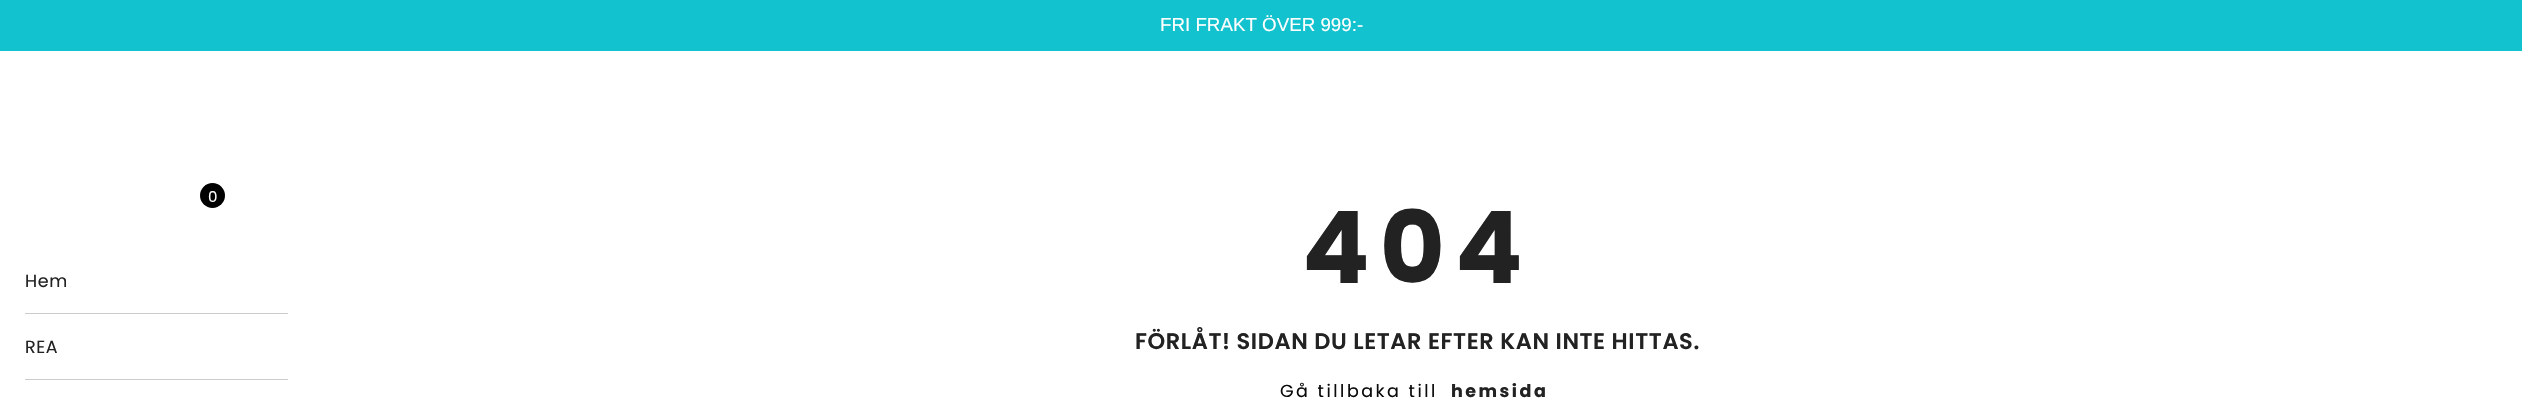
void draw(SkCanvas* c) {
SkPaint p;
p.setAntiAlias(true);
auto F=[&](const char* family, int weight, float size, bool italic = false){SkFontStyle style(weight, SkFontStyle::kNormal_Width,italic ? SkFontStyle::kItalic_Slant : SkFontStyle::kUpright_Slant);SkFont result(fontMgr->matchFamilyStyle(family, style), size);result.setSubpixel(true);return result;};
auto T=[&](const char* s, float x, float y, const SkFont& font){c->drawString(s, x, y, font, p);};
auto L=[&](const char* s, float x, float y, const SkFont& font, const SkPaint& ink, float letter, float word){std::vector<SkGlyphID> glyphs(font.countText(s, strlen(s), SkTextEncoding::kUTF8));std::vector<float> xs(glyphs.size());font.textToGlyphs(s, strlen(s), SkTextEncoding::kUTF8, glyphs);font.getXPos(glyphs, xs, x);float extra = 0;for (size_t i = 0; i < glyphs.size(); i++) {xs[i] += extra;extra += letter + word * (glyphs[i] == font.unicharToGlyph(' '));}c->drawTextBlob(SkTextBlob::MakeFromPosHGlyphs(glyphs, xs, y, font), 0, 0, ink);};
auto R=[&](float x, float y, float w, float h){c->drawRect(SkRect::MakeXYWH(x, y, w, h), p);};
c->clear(0xffffffff);
p.setColor(0xff12c2ce);
R(0,0,2522,51);
auto f1 = F("Liberation Sans",400,18.75);
p.setColor(0xffffffff);
T("FRI FRAKT ÖVER 999:-",1160,31,f1);
p.setColor(0xff000000);
c->drawCircle(212.5,195.5,12.5,p);
auto f2 = F("Poppins",400,15);
p.setColor(0xffffffff);
T("0",208,202,f2);
p.setColor(0xffcccccc);
R(25,313,263,1);
auto f3 = F("Poppins",400,17.5);
p.setColor(0xff222222);
L("Hem",25,287,f3,p,.6,0);
p.setColor(0xffcccccc);
R(25,379,263,1);
p.setColor(0xff222222);
L("REA",25,353,f3,p,.6,0);
auto f4 = F("Poppins",700,100);
L("404",1302,283,f4,p,10,0);
auto f5 = F("Poppins",600,22.5);
L("FÖRLÅT! SIDAN DU LETAR EFTER KAN INTE HITTAS.",1135,349,f5,p,.6,0);
p.setColor(0xff0a0a0a);
L("Gå tillbaka till",1280,397,f3,p,2.5,0);
auto f6 = F("Poppins",700,17.5);
p.setColor(0xff222222);
L("hemsida",1451,397,f6,p,2.5,0);
}
